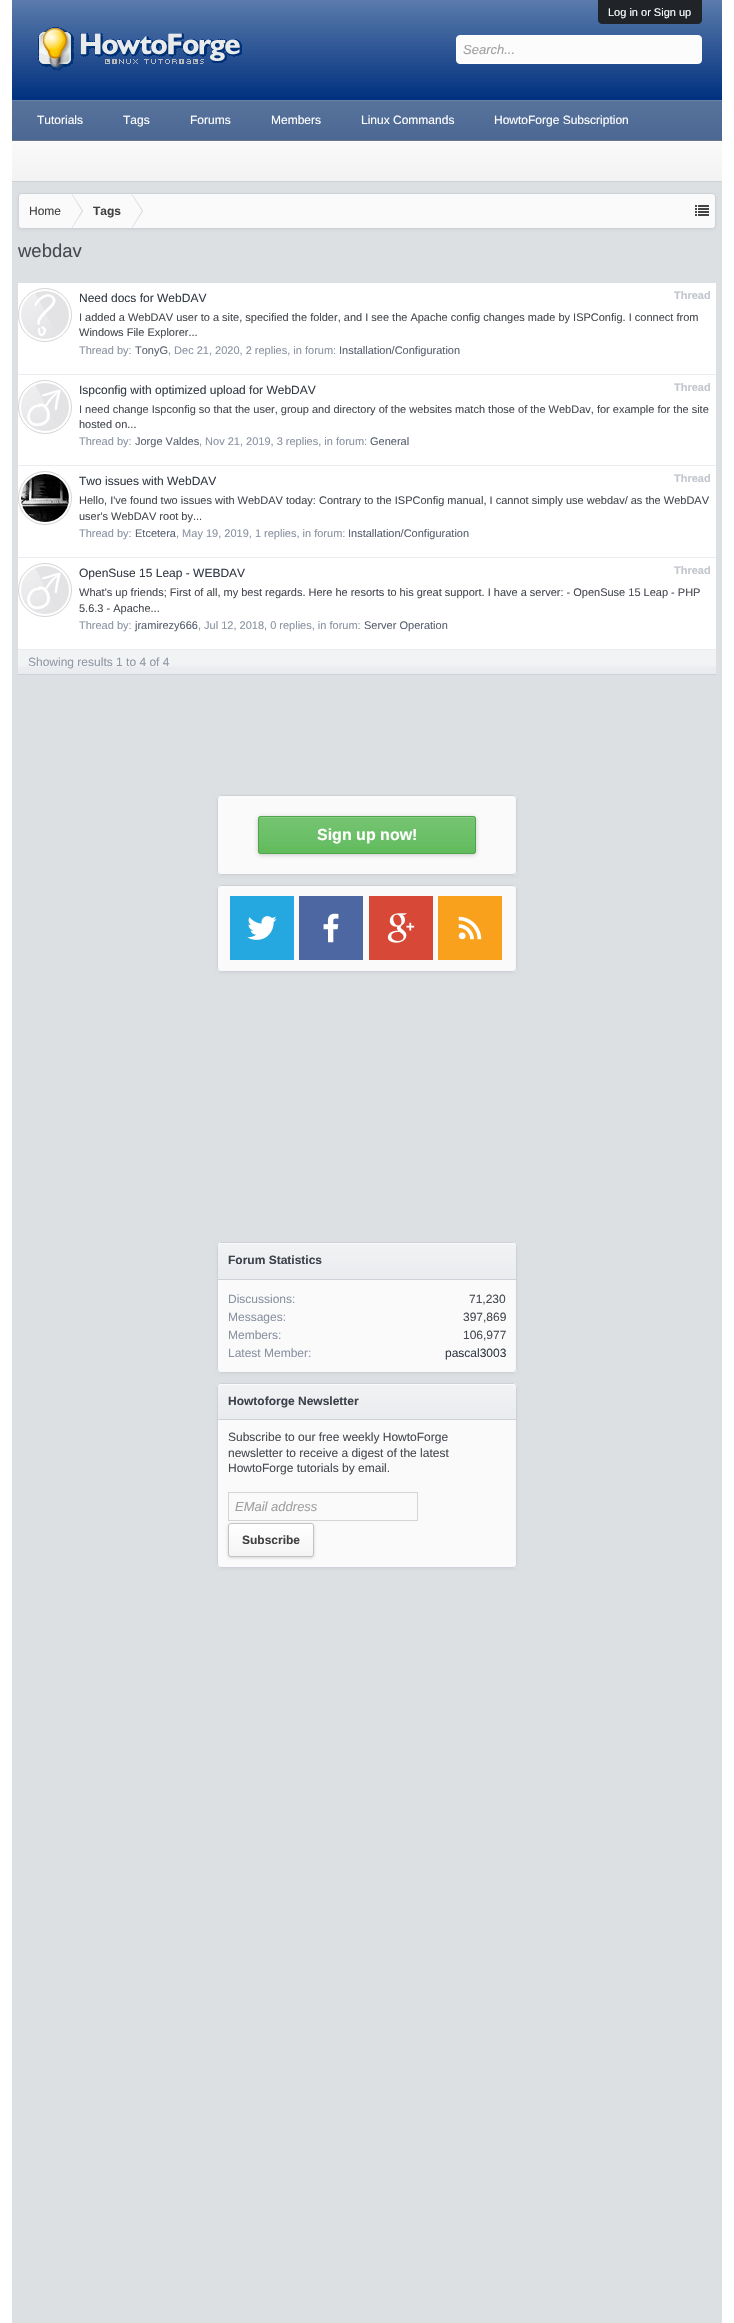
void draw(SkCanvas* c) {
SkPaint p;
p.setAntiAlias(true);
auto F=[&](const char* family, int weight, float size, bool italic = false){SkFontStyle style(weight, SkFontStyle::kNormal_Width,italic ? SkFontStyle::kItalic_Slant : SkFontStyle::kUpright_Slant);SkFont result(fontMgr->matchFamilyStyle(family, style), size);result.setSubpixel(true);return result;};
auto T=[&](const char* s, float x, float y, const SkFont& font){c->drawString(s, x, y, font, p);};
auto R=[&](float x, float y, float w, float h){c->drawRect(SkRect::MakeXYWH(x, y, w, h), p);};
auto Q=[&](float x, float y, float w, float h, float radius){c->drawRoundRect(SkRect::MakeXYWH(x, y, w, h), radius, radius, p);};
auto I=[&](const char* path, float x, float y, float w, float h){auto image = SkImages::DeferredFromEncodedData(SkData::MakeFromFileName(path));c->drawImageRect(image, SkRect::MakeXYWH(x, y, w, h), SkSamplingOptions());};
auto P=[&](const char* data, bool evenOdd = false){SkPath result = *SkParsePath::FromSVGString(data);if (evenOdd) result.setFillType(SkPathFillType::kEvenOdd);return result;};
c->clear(0xffffffff);
{
const SkColor colors[] = {0xff5a7bab,0xff00307e};
const float stops[] = {0,1};
const SkPoint ends[] = {{367,0}, {367,100}};
p.setShader(SkGradientShader::MakeLinear(ends, colors, stops, 2, SkTileMode::kClamp));
p.setAlpha(255);
}
R(12,0,710,100);
p.setShader(nullptr);
p.setColor(0xff202328);
c->drawPath(P("M598 0h104v20c0 2-2 4-4 4h-96c-2 0-4-2-4-4z"),p);
auto f1 = F("Liberation Sans",400,11);
p.setColor(0xffffffff);
T("Log in or Sign up",608,16,f1);
I("1.png",38,27,204,44);
p.setColor(0xfffcfcfc);
c->drawRoundRect(SkRect::MakeXYWH(456.5,35.5,245,28),3.5,3.5,p);
p.setStroke(true);
p.setStrokeWidth(1);
p.setColor(0xffffffff);
c->drawRoundRect(SkRect::MakeXYWH(456.5,35.5,245,28),3.5,3.5,p);
auto f2 = F("Liberation Sans",400,13,true);
p.setStroke(false);
p.setColor(0xffa0a0a0);
T("Search...",463,54,f2);
{
const SkColor colors[] = {0xff58739b,0xff4b6894};
const float stops[] = {0,1};
const SkPoint ends[] = {{367,100}, {367,140}};
p.setShader(SkGradientShader::MakeLinear(ends, colors, stops, 2, SkTileMode::kClamp));
p.setAlpha(255);
}
R(12,101,710,39);
p.setShader(nullptr);
p.setColor(0xff6981a5);
R(12,100,710,1);
p.setColor(0xff6c7989);
R(12,140,710,1);
auto f3 = F("Liberation Sans",400,12);
p.setColor(0xffffffff);
T("Tutorials",37,124,f3);
T("Tags",123,124,f3);
T("Forums",190,124,f3);
T("Members",271,124,f3);
T("Linux Commands",361,124,f3);
T("HowtoForge Subscription",494,124,f3);
{
const SkColor colors[] = {0xfffafafb,0xfff3f3f3};
const float stops[] = {0,1};
const SkPoint ends[] = {{367,141}, {367,181}};
p.setShader(SkGradientShader::MakeLinear(ends, colors, stops, 2, SkTileMode::kClamp));
p.setAlpha(255);
}
R(12,141,710,40);
p.setShader(nullptr);
p.setColor(0xffced2d8);
R(12,181,710,1);
p.setColor(0xffdde0e3);
R(12,182,710,2141);
p.setColor(0x0d000000);
p.setMaskFilter(SkMaskFilter::MakeBlur(kNormal_SkBlurStyle, 1.5));
c->drawRoundRect(SkRect::MakeXYWH(18,194,698,36),4,4,p);
p.setMaskFilter(nullptr);
p.setColor(0xfffafafb);
c->drawRoundRect(SkRect::MakeXYWH(18.5,193.5,697,35),3.5,3.5,p);
p.setStroke(true);
p.setColor(0xffced2d8);
c->drawRoundRect(SkRect::MakeXYWH(18.5,193.5,697,35),3.5,3.5,p);
c->save();
c->clipPath(P("M22 194h690c1.5 0 3 1.5 3 3v28c0 1.5-1.5 3-3 3h-690c-1.5 0-3-1.5-3-3v-28c0-1.5 1.5-3 3-3z"),true);
p.setStroke(false);
p.setColor(0xfffafafb);
c->drawPath(P("M24 194h47v35h-47c-3 0-5-2-5-5v-25c0-3 2-5 5-5z"),p);
c->restore();
p.setColor(0xff414141);
T("Home",29,215,f3);
p.setColor(0xffced2d8);
c->drawPath(P("M72 228v-34l11 17z"),p);
p.setColor(0xfffafafb);
c->drawPath(P("M71.5 194l10.5 17l-10.5 17h-.5v-34z"),p);
auto f4 = F("Liberation Sans",700,12);
p.setColor(0xff414141);
T("Tags",93,215,f4);
p.setColor(0xffced2d8);
c->drawPath(P("M132 228v-34l11 17z"),p);
p.setColor(0xfffafafb);
c->drawPath(P("M131.5 194l10.5 17l-10.5 17h-.5v-34z"),p);
I("2.png",695,205,14,11);
auto f5 = F("Liberation Sans",400,18.5);
p.setColor(0xff474b51);
T("webdav",18,257,f5);
p.setColor(0xffffffff);
R(18,283,698,366);
p.setColor(0xffebecef);
R(18,374,698,1);
p.setStroke(true);
p.setColor(0xffd5d5d5);
c->drawCircle(45,315,26.5,p);
I("3.png",21,291,48,48);
p.setStroke(false);
p.setColor(0xff363d47);
T("Need docs for WebDAV",79,302,f3);
auto f6 = F("Liberation Sans",700,11);
p.setColor(0xffc2c6ce);
T("Thread",674,299,f6);
p.setColor(0xff474b51);
T("I added a WebDAV user to a site, specified the folder, and I see the Apache config changes made by ISPConfig. I connect from",79,321,f1);
T("Windows File Explorer...",79,336,f1);
p.setColor(0xff8a93a2);
T("Thread by:",79,354,f1);
p.setColor(0xff596170);
T("TonyG",135,354,f1);
p.setColor(0xff8a93a2);
T(", Dec 21, 2020, 2 replies, in forum:",168,354,f1);
p.setColor(0xff596170);
T("Installation/Configuration",339,354,f1);
p.setColor(0xffebecef);
R(18,465,698,1);
p.setStroke(true);
p.setColor(0xffd5d5d5);
c->drawCircle(45,407,26.5,p);
I("4.png",21,383,48,48);
p.setStroke(false);
p.setColor(0xff363d47);
T("Ispconfig with optimized upload for WebDAV",79,394,f3);
p.setColor(0xffc2c6ce);
T("Thread",674,391,f6);
p.setColor(0xff474b51);
T("I need change Ispconfig so that the user, group and directory of the websites match those of the WebDav, for example for the site",79,413,f1);
T("hosted on...",79,428,f1);
p.setColor(0xff8a93a2);
T("Thread by:",79,445,f1);
p.setColor(0xff596170);
T("Jorge Valdes",135,445,f1);
p.setColor(0xff8a93a2);
T(", Nov 21, 2019, 3 replies, in forum:",199,445,f1);
p.setColor(0xff596170);
T("General",370,445,f1);
p.setColor(0xffebecef);
R(18,557,698,1);
p.setStroke(true);
p.setColor(0xffd5d5d5);
c->drawCircle(45,498,26.5,p);
I("5.png",21,474,48,48);
p.setStroke(false);
p.setColor(0xff363d47);
T("Two issues with WebDAV",79,485,f3);
p.setColor(0xffc2c6ce);
T("Thread",674,482,f6);
p.setColor(0xff474b51);
T("Hello, I've found two issues with WebDAV today: Contrary to the ISPConfig manual, I cannot simply use webdav/ as the WebDAV",79,504,f1);
T("user's WebDAV root by...",79,520,f1);
p.setColor(0xff8a93a2);
T("Thread by:",79,537,f1);
p.setColor(0xff596170);
T("Etcetera",135,537,f1);
p.setColor(0xff8a93a2);
T(", May 19, 2019, 1 replies, in forum:",176,537,f1);
p.setColor(0xff596170);
T("Installation/Configuration",348,537,f1);
p.setColor(0xffebecef);
R(18,649,698,25);
p.setStroke(true);
p.setColor(0xffd5d5d5);
c->drawCircle(45,590,26.5,p);
I("4.png",21,566,48,48);
p.setStroke(false);
p.setColor(0xff363d47);
T("OpenSuse 15 Leap - WEBDAV",79,577,f3);
p.setColor(0xffc2c6ce);
T("Thread",674,574,f6);
p.setColor(0xff474b51);
T("What's up friends; First of all, my best regards. Here he resorts to his great support. I have a server: - OpenSuse 15 Leap - PHP",79,596,f1);
T("5.6.3 - Apache...",79,612,f1);
p.setColor(0xff8a93a2);
T("Thread by:",79,629,f1);
p.setColor(0xff596170);
T("jramirezy666",135,629,f1);
p.setColor(0xff8a93a2);
T(", Jul 12, 2018, 0 replies, in forum:",198,629,f1);
p.setColor(0xff596170);
T("Server Operation",364,629,f1);
I("6.png",18,650,698,17);
p.setColor(0xffced2d8);
R(18,674,698,1);
p.setColor(0xff9098a7);
T("Showing results 1 to 4 of 4",28,666,f3);
p.setColor(0x0d000000);
p.setMaskFilter(SkMaskFilter::MakeBlur(kNormal_SkBlurStyle, 1.5));
c->drawRoundRect(SkRect::MakeXYWH(217,796,300,80),4,4,p);
p.setMaskFilter(nullptr);
p.setColor(0xfffafafb);
Q(217,795,300,80,4);
I("7.png",217,797,300,1);
p.setStroke(true);
p.setColor(0xffced2d8);
c->drawRoundRect(SkRect::MakeXYWH(217.5,795.5,299,79),3.5,3.5,p);
p.setStroke(false);
p.setColor(0x33000000);
p.setMaskFilter(SkMaskFilter::MakeBlur(kNormal_SkBlurStyle, 2));
c->drawRoundRect(SkRect::MakeXYWH(258,817,218,38),3,3,p);
p.setMaskFilter(nullptr);
p.setColor(0xff62bc5e);
Q(258,816,218,38,3);
{
const SkColor colors[] = {0x1fffffff,0x00ffffff};
const float stops[] = {0,1};
const SkPoint ends[] = {{367,817}, {367,853}};
p.setShader(SkGradientShader::MakeLinear(ends, colors, stops, 2, SkTileMode::kClamp));
p.setAlpha(255);
}
R(258,817,218,30);
p.setShader(nullptr);
p.setColor(0xff89cd86);
c->drawPath(P("M261 818h212c1 0 2 1 2 2c0-1 0-3-2-3h-212l-1 1l-1 2c0-1 1-2 2-2z"),p);
p.setStroke(true);
p.setColor(0xff4da749);
c->drawRoundRect(SkRect::MakeXYWH(258.5,816.5,217,37),2.5,2.5,p);
auto f7 = F("Liberation Sans",700,16);
p.setStroke(false);
p.setColor(0xffffffff);
T("Sign up now!",317,840,f7);
p.setColor(0x0d000000);
p.setMaskFilter(SkMaskFilter::MakeBlur(kNormal_SkBlurStyle, 1.5));
c->drawRoundRect(SkRect::MakeXYWH(217,886,300,87),4,4,p);
p.setMaskFilter(nullptr);
p.setColor(0xfffafafb);
Q(217,885,300,87,4);
I("7.png",217,887,300,1);
p.setStroke(true);
p.setColor(0xffced2d8);
c->drawRoundRect(SkRect::MakeXYWH(217.5,885.5,299,86),3.5,3.5,p);
I("8.png",230,896,64,64);
I("9.png",299,896,64,64);
I("10.png",369,896,64,64);
I("11.png",438,896,64,64);
p.setStroke(false);
p.setColor(0x0d000000);
p.setMaskFilter(SkMaskFilter::MakeBlur(kNormal_SkBlurStyle, 1.5));
c->drawRoundRect(SkRect::MakeXYWH(217,1243,300,131),4,4,p);
p.setMaskFilter(nullptr);
p.setColor(0xfffafafb);
Q(217,1242,300,131,4);
I("7.png",217,1244,300,1);
p.setStroke(true);
p.setColor(0xffced2d8);
c->drawRoundRect(SkRect::MakeXYWH(217.5,1242.5,299,130),3.5,3.5,p);
p.setStroke(false);
p.setColor(0xffebecef);
c->drawPath(P("M221 1243h292c1.5 0 3 1.5 3 3v34h-298v-34c0-1.5 1.5-3 3-3z"),p);
{
const SkColor colors[] = {0x59ffffff,0x00ffffff};
const float stops[] = {0,1};
const SkPoint ends[] = {{367,1243}, {367,1279}};
p.setShader(SkGradientShader::MakeLinear(ends, colors, stops, 2, SkTileMode::kClamp));
p.setAlpha(255);
}
c->drawPath(P("M221 1243h292c1.5 0 3 1.5 3 3v33h-298v-33c0-1.5 1.5-3 3-3z"),p);
p.setShader(nullptr);
p.setColor(0xb3ffffff);
c->drawPath(P("M221 1244h292c2 0 3 1 3 3l-1-3l-1-1h-293c-2 0-3 2-3 4c0-2 1-3 3-3z"),p);
p.setColor(0xffced2d8);
R(218,1279,298,1);
p.setColor(0xff3c414b);
T("Forum Statistics",228,1264,f4);
p.setColor(0xff8a93a2);
T("Discussions:",228,1303,f3);
p.setColor(0xff474b51);
T("71,230",469,1303,f3);
p.setColor(0xff8a93a2);
T("Messages:",228,1321,f3);
p.setColor(0xff474b51);
T("397,869",463,1321,f3);
p.setColor(0xff8a93a2);
T("Members:",228,1339,f3);
p.setColor(0xff474b51);
T("106,977",463,1339,f3);
p.setColor(0xff8a93a2);
T("Latest Member:",228,1357,f3);
p.setColor(0xff363d47);
T("pascal3003",445,1357,f3);
p.setColor(0x0d000000);
p.setMaskFilter(SkMaskFilter::MakeBlur(kNormal_SkBlurStyle, 1.5));
c->drawRoundRect(SkRect::MakeXYWH(217,1384,300,185),4,4,p);
p.setMaskFilter(nullptr);
p.setColor(0xfffafafb);
Q(217,1383,300,185,4);
I("7.png",217,1385,300,1);
p.setStroke(true);
p.setColor(0xffced2d8);
c->drawRoundRect(SkRect::MakeXYWH(217.5,1383.5,299,184),3.5,3.5,p);
p.setStroke(false);
p.setColor(0xffebecef);
c->drawPath(P("M221 1384h292c1.5 0 3 1.5 3 3v33h-298v-33c0-1.5 1.5-3 3-3z"),p);
{
const SkColor colors[] = {0x59ffffff,0x00ffffff};
const float stops[] = {0,1};
const SkPoint ends[] = {{367,1384}, {367,1419}};
p.setShader(SkGradientShader::MakeLinear(ends, colors, stops, 2, SkTileMode::kClamp));
p.setAlpha(255);
}
c->drawPath(P("M221 1384h292c1.5 0 3 1.5 3 3v32h-298v-32c0-1.5 1.5-3 3-3z"),p);
p.setShader(nullptr);
p.setColor(0xb3ffffff);
c->drawPath(P("M221 1385h292c2 0 3 1 3 3l-1-3l-1-1h-293c-2 0-3 2-3 4c0-2 1-3 3-3z"),p);
p.setColor(0xffced2d8);
R(218,1419,298,1);
p.setColor(0xff3c414b);
T("Howtoforge Newsletter",228,1405,f4);
p.setColor(0xff474b51);
T("Subscribe to our free weekly HowtoForge",228,1441,f3);
T("newsletter to receive a digest of the latest",228,1457,f3);
T("HowtoForge tutorials by email.",228,1472,f3);
p.setStroke(true);
p.setColor(0xffd4d4d4);
c->drawRect(SkRect::MakeXYWH(228.5,1492.5,189,28),p);
p.setStroke(false);
p.setColor(0xffa0a0a0);
T("EMail address",235,1511,f2);
p.setColor(0x26000000);
p.setMaskFilter(SkMaskFilter::MakeBlur(kNormal_SkBlurStyle, 1.5));
c->drawRoundRect(SkRect::MakeXYWH(228,1524,86,34),3,3,p);
p.setMaskFilter(nullptr);
c->save();
c->clipPath(P("M231 1523h80c1.5 0 3 1.5 3 3v28c0 1.5-1.5 3-3 3h-80c-1.5 0-3-1.5-3-3v-28c0-1.5 1.5-3 3-3z"),true);
{
const SkColor colors[] = {0xffffffff,0xfff4f4f4};
const float stops[] = {0,1};
const SkPoint ends[] = {{271,1524}, {271,1556}};
p.setShader(SkGradientShader::MakeLinear(ends, colors, stops, 2, SkTileMode::kClamp));
p.setAlpha(255);
}
R(228,1524,86,32);
c->restore();
p.setStroke(true);
p.setShader(nullptr);
p.setColor(0xffc2c2c2);
c->drawRoundRect(SkRect::MakeXYWH(228.5,1523.5,85,33),2.5,2.5,p);
p.setStroke(false);
p.setColor(0xff414141);
T("Subscribe",242,1544,f4);
}
